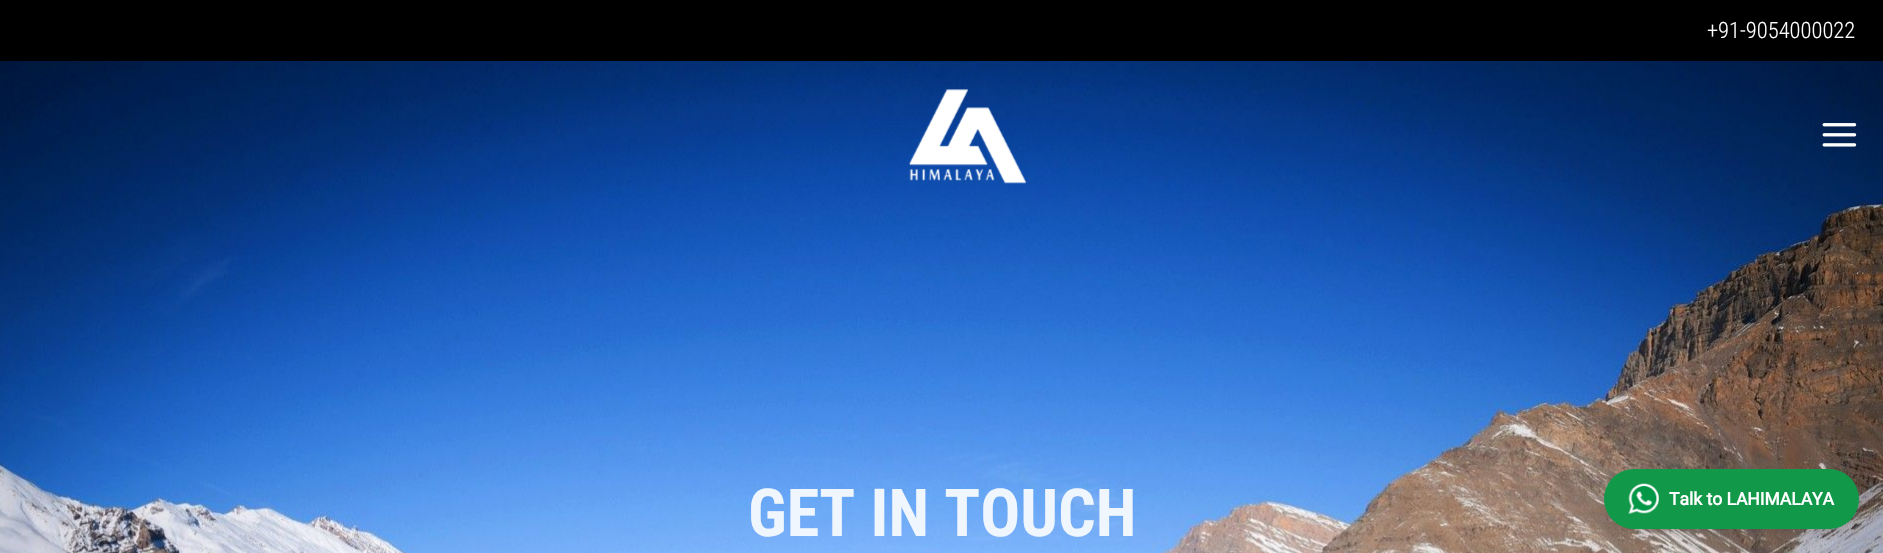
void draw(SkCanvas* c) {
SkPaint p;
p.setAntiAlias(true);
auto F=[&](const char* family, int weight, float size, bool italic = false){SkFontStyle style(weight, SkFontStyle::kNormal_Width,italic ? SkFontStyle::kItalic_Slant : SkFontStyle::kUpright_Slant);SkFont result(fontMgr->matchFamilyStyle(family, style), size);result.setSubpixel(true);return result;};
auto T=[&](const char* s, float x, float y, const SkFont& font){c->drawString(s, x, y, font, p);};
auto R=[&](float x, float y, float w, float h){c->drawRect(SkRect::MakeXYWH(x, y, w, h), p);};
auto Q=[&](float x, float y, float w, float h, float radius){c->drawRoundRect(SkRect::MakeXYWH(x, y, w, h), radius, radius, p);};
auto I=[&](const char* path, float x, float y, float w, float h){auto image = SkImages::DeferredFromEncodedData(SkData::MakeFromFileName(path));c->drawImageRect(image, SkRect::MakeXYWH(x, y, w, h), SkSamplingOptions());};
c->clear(0xffffffff);
p.setColor(0xff000000);
R(0,0,1883,61);
auto f1 = F("Roboto Condensed",300,22.5);
p.setColor(0xffffffff);
T("+91-9054000022",1707,38,f1);
I("3.png",0,61,1883,492);
I("1.png",909,89,117,95);
I("2.png",1822,123,35,24);
auto f2 = F("Roboto Condensed",700,66.25);
p.setColor(0xfff0f6fe);
T("GET IN TOUCH",748,536,f2);
p.setColor(0x26000000);
p.setMaskFilter(SkMaskFilter::MakeBlur(kNormal_SkBlurStyle, 7.5));
c->drawRoundRect(SkRect::MakeXYWH(1604,474,255,60),30,30,p);
p.setMaskFilter(nullptr);
p.setColor(0xff119849);
Q(1604,469,255,60,30);
I("4.png",1628,483,31,31);
auto f3 = F("Roboto",700,17.5);
p.setColor(0xffffffff);
T("Talk to LAHIMALAYA",1669,505,f3);
}
